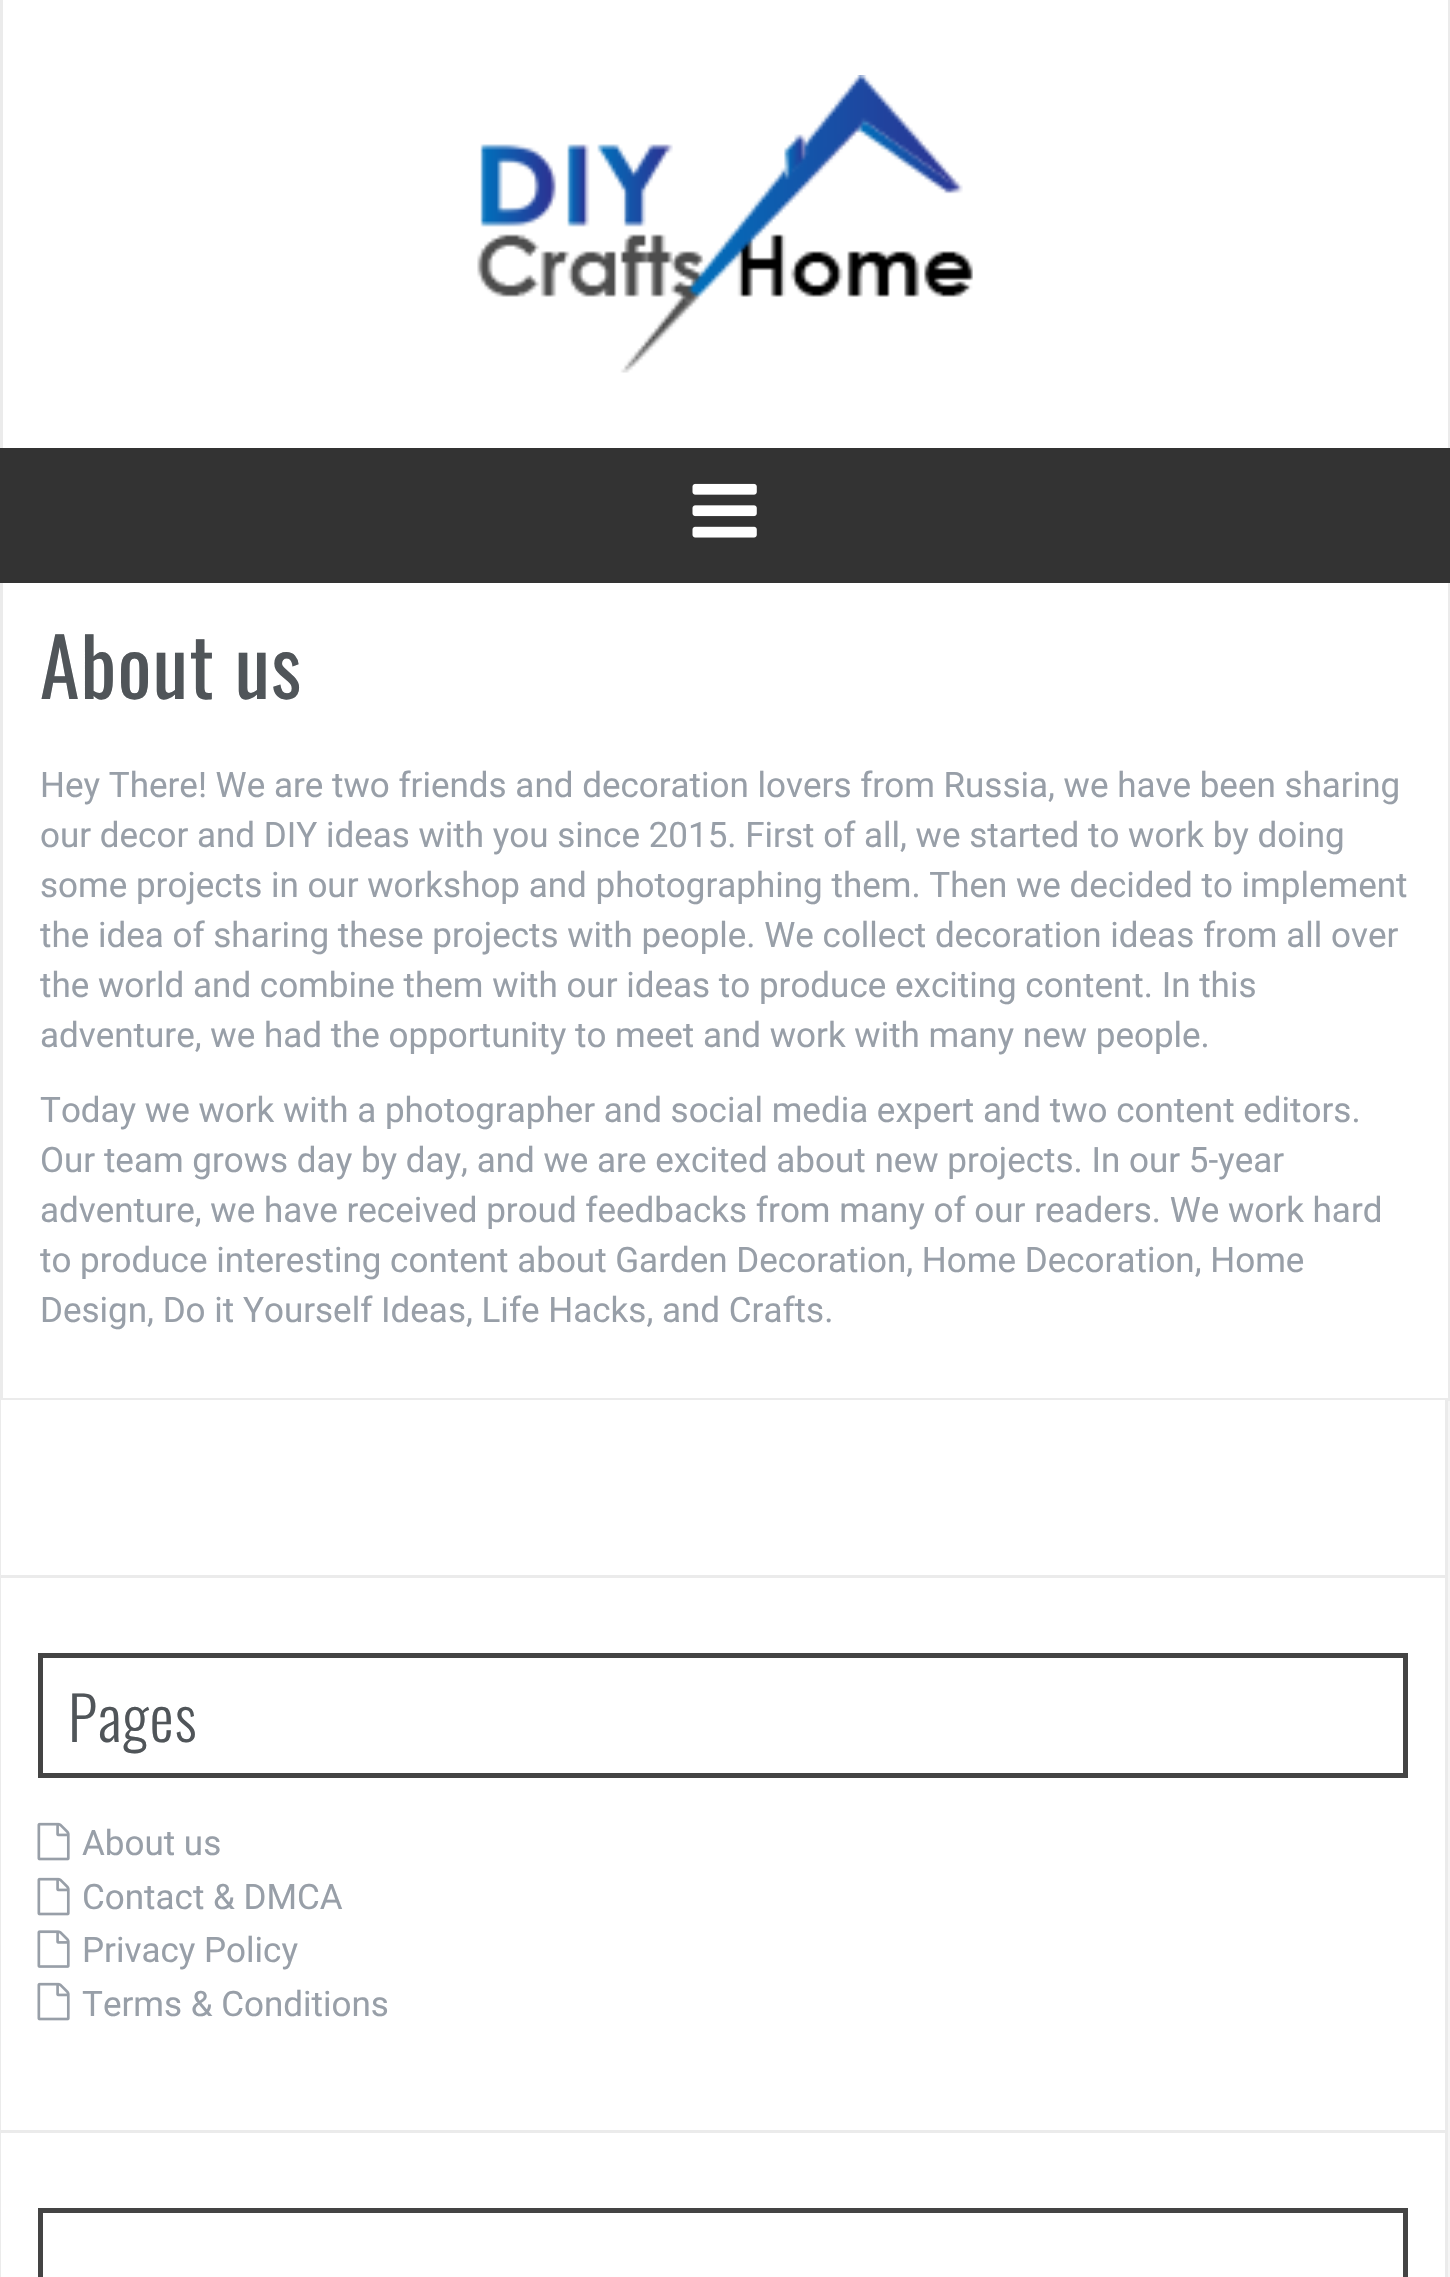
void draw(SkCanvas* c) {
SkPaint p;
p.setAntiAlias(true);
auto F=[&](const char* family, int weight, float size, bool italic = false){SkFontStyle style(weight, SkFontStyle::kNormal_Width,italic ? SkFontStyle::kItalic_Slant : SkFontStyle::kUpright_Slant);SkFont result(fontMgr->matchFamilyStyle(family, style), size);result.setSubpixel(true);return result;};
auto T=[&](const char* s, float x, float y, const SkFont& font){c->drawString(s, x, y, font, p);};
auto L=[&](const char* s, float x, float y, const SkFont& font, const SkPaint& ink, float letter, float word){std::vector<SkGlyphID> glyphs(font.countText(s, strlen(s), SkTextEncoding::kUTF8));std::vector<float> xs(glyphs.size());font.textToGlyphs(s, strlen(s), SkTextEncoding::kUTF8, glyphs);font.getXPos(glyphs, xs, x);float extra = 0;for (size_t i = 0; i < glyphs.size(); i++) {xs[i] += extra;extra += letter + word * (glyphs[i] == font.unicharToGlyph(' '));}c->drawTextBlob(SkTextBlob::MakeFromPosHGlyphs(glyphs, xs, y, font), 0, 0, ink);};
auto R=[&](float x, float y, float w, float h){c->drawRect(SkRect::MakeXYWH(x, y, w, h), p);};
auto I=[&](const char* path, float x, float y, float w, float h){auto image = SkImages::DeferredFromEncodedData(SkData::MakeFromFileName(path));c->drawImageRect(image, SkRect::MakeXYWH(x, y, w, h), SkSamplingOptions());};
c->clear(0xfff5f5f5);
p.setColor(0xffffffff);
R(3,0,1445,448);
p.setColor(0xffebebeb);
R(1448,0,2,448);
R(0,0,3,448);
I("1.png",477,75,496,298);
p.setColor(0xff333333);
R(0,448,1450,135);
I("2.png",692,483,65,55);
p.setColor(0xffffffff);
R(3,583,1445,815);
p.setColor(0xffebebeb);
R(1448,583,2,817);
R(0,1398,1450,3);
R(0,583,3,817);
auto f1 = F("Oswald",400,80);
p.setColor(0xff505559);
L("About us",40,699,f1,p,1.25,0);
auto f2 = F("Roboto",400,35);
p.setColor(0xff989fa8);
T("Hey There! We are two friends and decoration lovers from Russia, we have been sharing",40,797,f2);
T("our decor and DIY ideas with you since 2015. First of all, we started to work by doing",40,847,f2);
T("some projects in our workshop and photographing them. Then we decided to implement",40,897,f2);
T("the idea of sharing these projects with people. We collect decoration ideas from all over",40,947,f2);
T("the world and combine them with our ideas to produce exciting content. In this",40,997,f2);
T("adventure, we had the opportunity to meet and work with many new people.",40,1047,f2);
T("Today we work with a photographer and social media expert and two content editors.",40,1122,f2);
T("Our team grows day by day, and we are excited about new projects. In our 5-year",40,1172,f2);
T("adventure, we have received proud feedbacks from many of our readers. We work hard",40,1222,f2);
T("to produce interesting content about Garden Decoration, Home Decoration, Home",40,1272,f2);
T("Design, Do it Yourself Ideas, Life Hacks, and Crafts.",40,1322,f2);
p.setColor(0xffffffff);
R(1,1400,1444,175);
p.setColor(0xffebebeb);
R(1445,1400,3,877);
R(0,1575,1448,3);
R(0,1400,1,178);
p.setColor(0xffffffff);
R(1,1578,1444,552);
p.setColor(0xffebebeb);
R(0,2130,1448,3);
R(0,1578,1,699);
p.setStroke(true);
p.setStrokeWidth(5);
p.setColor(0xff444444);
c->drawRect(SkRect::MakeXYWH(40.5,1655.5,1365,120),p);
auto f3 = F("Oswald",300,60);
p.setStroke(false);
p.setColor(0xff505559);
L("Pages",68,1742,f3,p,1.25,0);
I("3.png",37,1822,33,39);
p.setColor(0xff989fa8);
T("About us",82,1855,f2);
I("3.png",37,1877,33,39);
T("Contact & DMCA",82,1909,f2);
I("4.png",37,1930,33,38);
T("Privacy Policy",82,1962,f2);
I("3.png",37,1982,33,39);
T("Terms & Conditions",82,2016,f2);
p.setColor(0xffffffff);
R(1,2133,1444,144);
p.setStroke(true);
p.setColor(0xff444444);
c->drawRect(SkRect::MakeXYWH(40.5,2210.5,1365,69),p);
}
